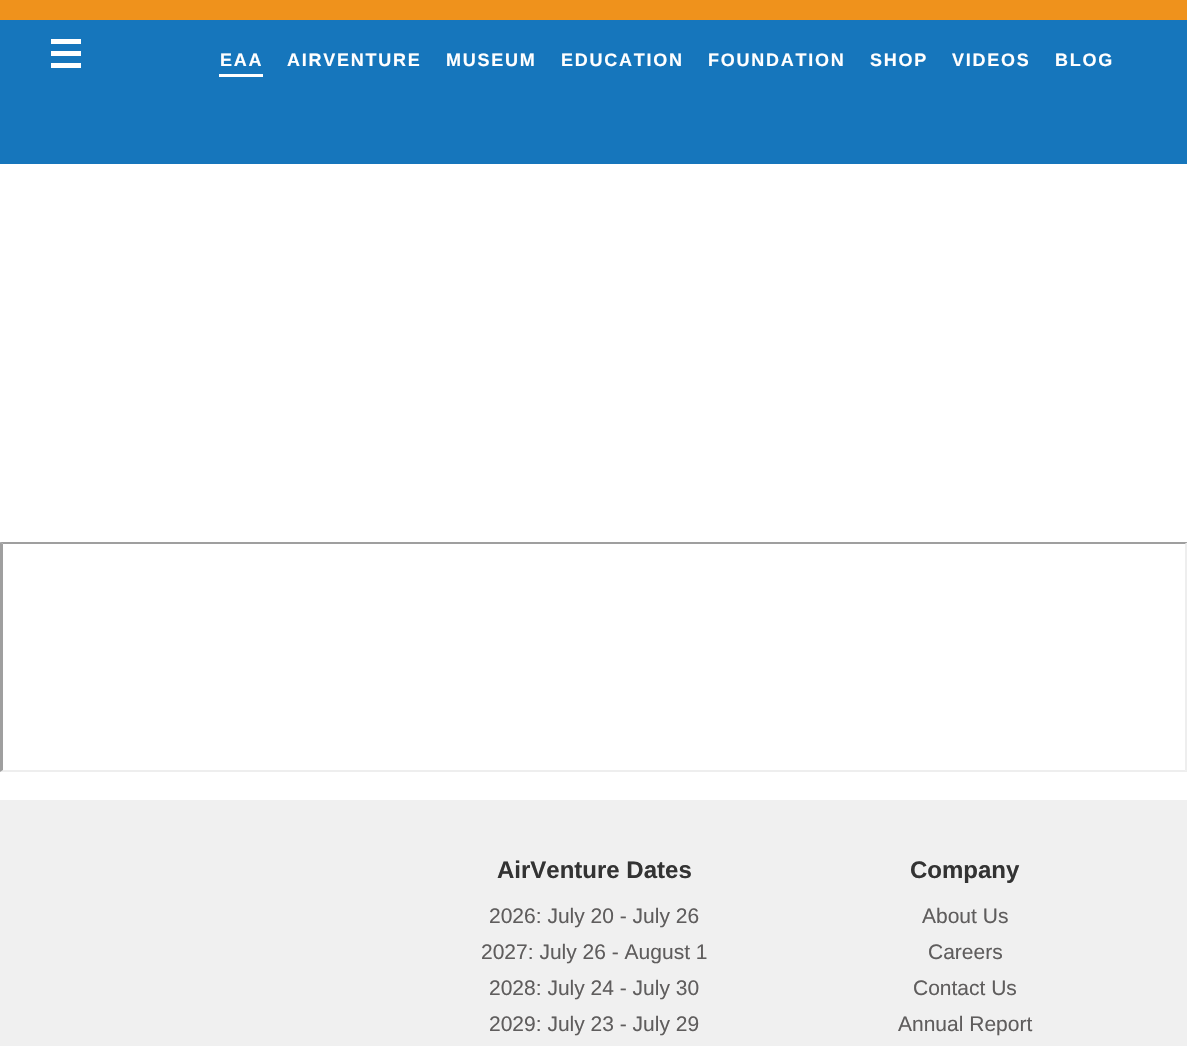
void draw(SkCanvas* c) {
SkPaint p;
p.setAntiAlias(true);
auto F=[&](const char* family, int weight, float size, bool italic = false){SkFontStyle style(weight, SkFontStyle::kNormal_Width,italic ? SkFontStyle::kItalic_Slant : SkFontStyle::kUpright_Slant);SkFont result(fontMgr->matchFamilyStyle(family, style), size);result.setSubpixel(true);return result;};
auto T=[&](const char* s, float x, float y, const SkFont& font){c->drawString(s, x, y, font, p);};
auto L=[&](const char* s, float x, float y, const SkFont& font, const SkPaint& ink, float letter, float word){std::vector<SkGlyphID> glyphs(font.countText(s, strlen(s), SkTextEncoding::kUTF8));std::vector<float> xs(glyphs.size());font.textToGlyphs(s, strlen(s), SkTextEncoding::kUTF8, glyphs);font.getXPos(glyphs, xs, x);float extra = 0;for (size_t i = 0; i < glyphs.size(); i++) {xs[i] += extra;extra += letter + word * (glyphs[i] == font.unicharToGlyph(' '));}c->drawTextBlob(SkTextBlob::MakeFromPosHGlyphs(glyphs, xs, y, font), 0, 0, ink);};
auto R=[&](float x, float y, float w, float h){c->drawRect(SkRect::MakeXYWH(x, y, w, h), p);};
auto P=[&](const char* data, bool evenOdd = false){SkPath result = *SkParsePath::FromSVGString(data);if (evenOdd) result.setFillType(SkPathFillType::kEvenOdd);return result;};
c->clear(0xffffffff);
p.setColor(0xffef921c);
R(0,0,1187,20);
p.setColor(0xff1676bc);
R(0,20,1187,144);
p.setColor(0xffffffff);
R(51,39,30,5);
R(51,51,30,5);
R(51,63,30,5);
auto f1 = F("Liberation Sans",700,18);
L("EAA",220,66,f1,p,1.75,0);
R(219,74,44,3);
L("AIRVENTURE",287,66,f1,p,1.75,0);
L("MUSEUM",446,66,f1,p,1.75,0);
L("EDUCATION",561,66,f1,p,1.75,0);
L("FOUNDATION",708,66,f1,p,1.75,0);
L("SHOP",870,66,f1,p,1.75,0);
L("VIDEOS",952,66,f1,p,1.75,0);
L("BLOG",1055,66,f1,p,1.75,0);
p.setColor(0xff9f9f9f);
c->drawPath(P("M0 542h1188l-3 2h-1182z"),p);
p.setColor(0xffeeeeee);
c->drawPath(P("M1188 542v230l-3-2v-226z"),p);
c->drawPath(P("M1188 772h-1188l3-2h1182z"),p);
p.setColor(0xff9f9f9f);
c->drawPath(P("M0 772v-230l3 2v226z"),p);
p.setColor(0xfff0f0f0);
R(0,800,1187,246);
auto f2 = F("Liberation Sans",700,24);
p.setColor(0xff333333);
T("AirVenture Dates",497,878,f2);
auto f3 = F("Liberation Sans",400,21);
p.setColor(0xff5f5d5d);
T("2026: July 20 - July 26",489,923,f3);
T("2027: July 26 - August 1",481,959,f3);
T("2028: July 24 - July 30",489,995,f3);
T("2029: July 23 - July 29",489,1031,f3);
p.setColor(0xff333333);
T("Company",910,878,f2);
p.setColor(0xff5f5d5d);
T("About Us",922,923,f3);
T("Careers",928,959,f3);
T("Contact Us",913,995,f3);
T("Annual Report",898,1031,f3);
}
